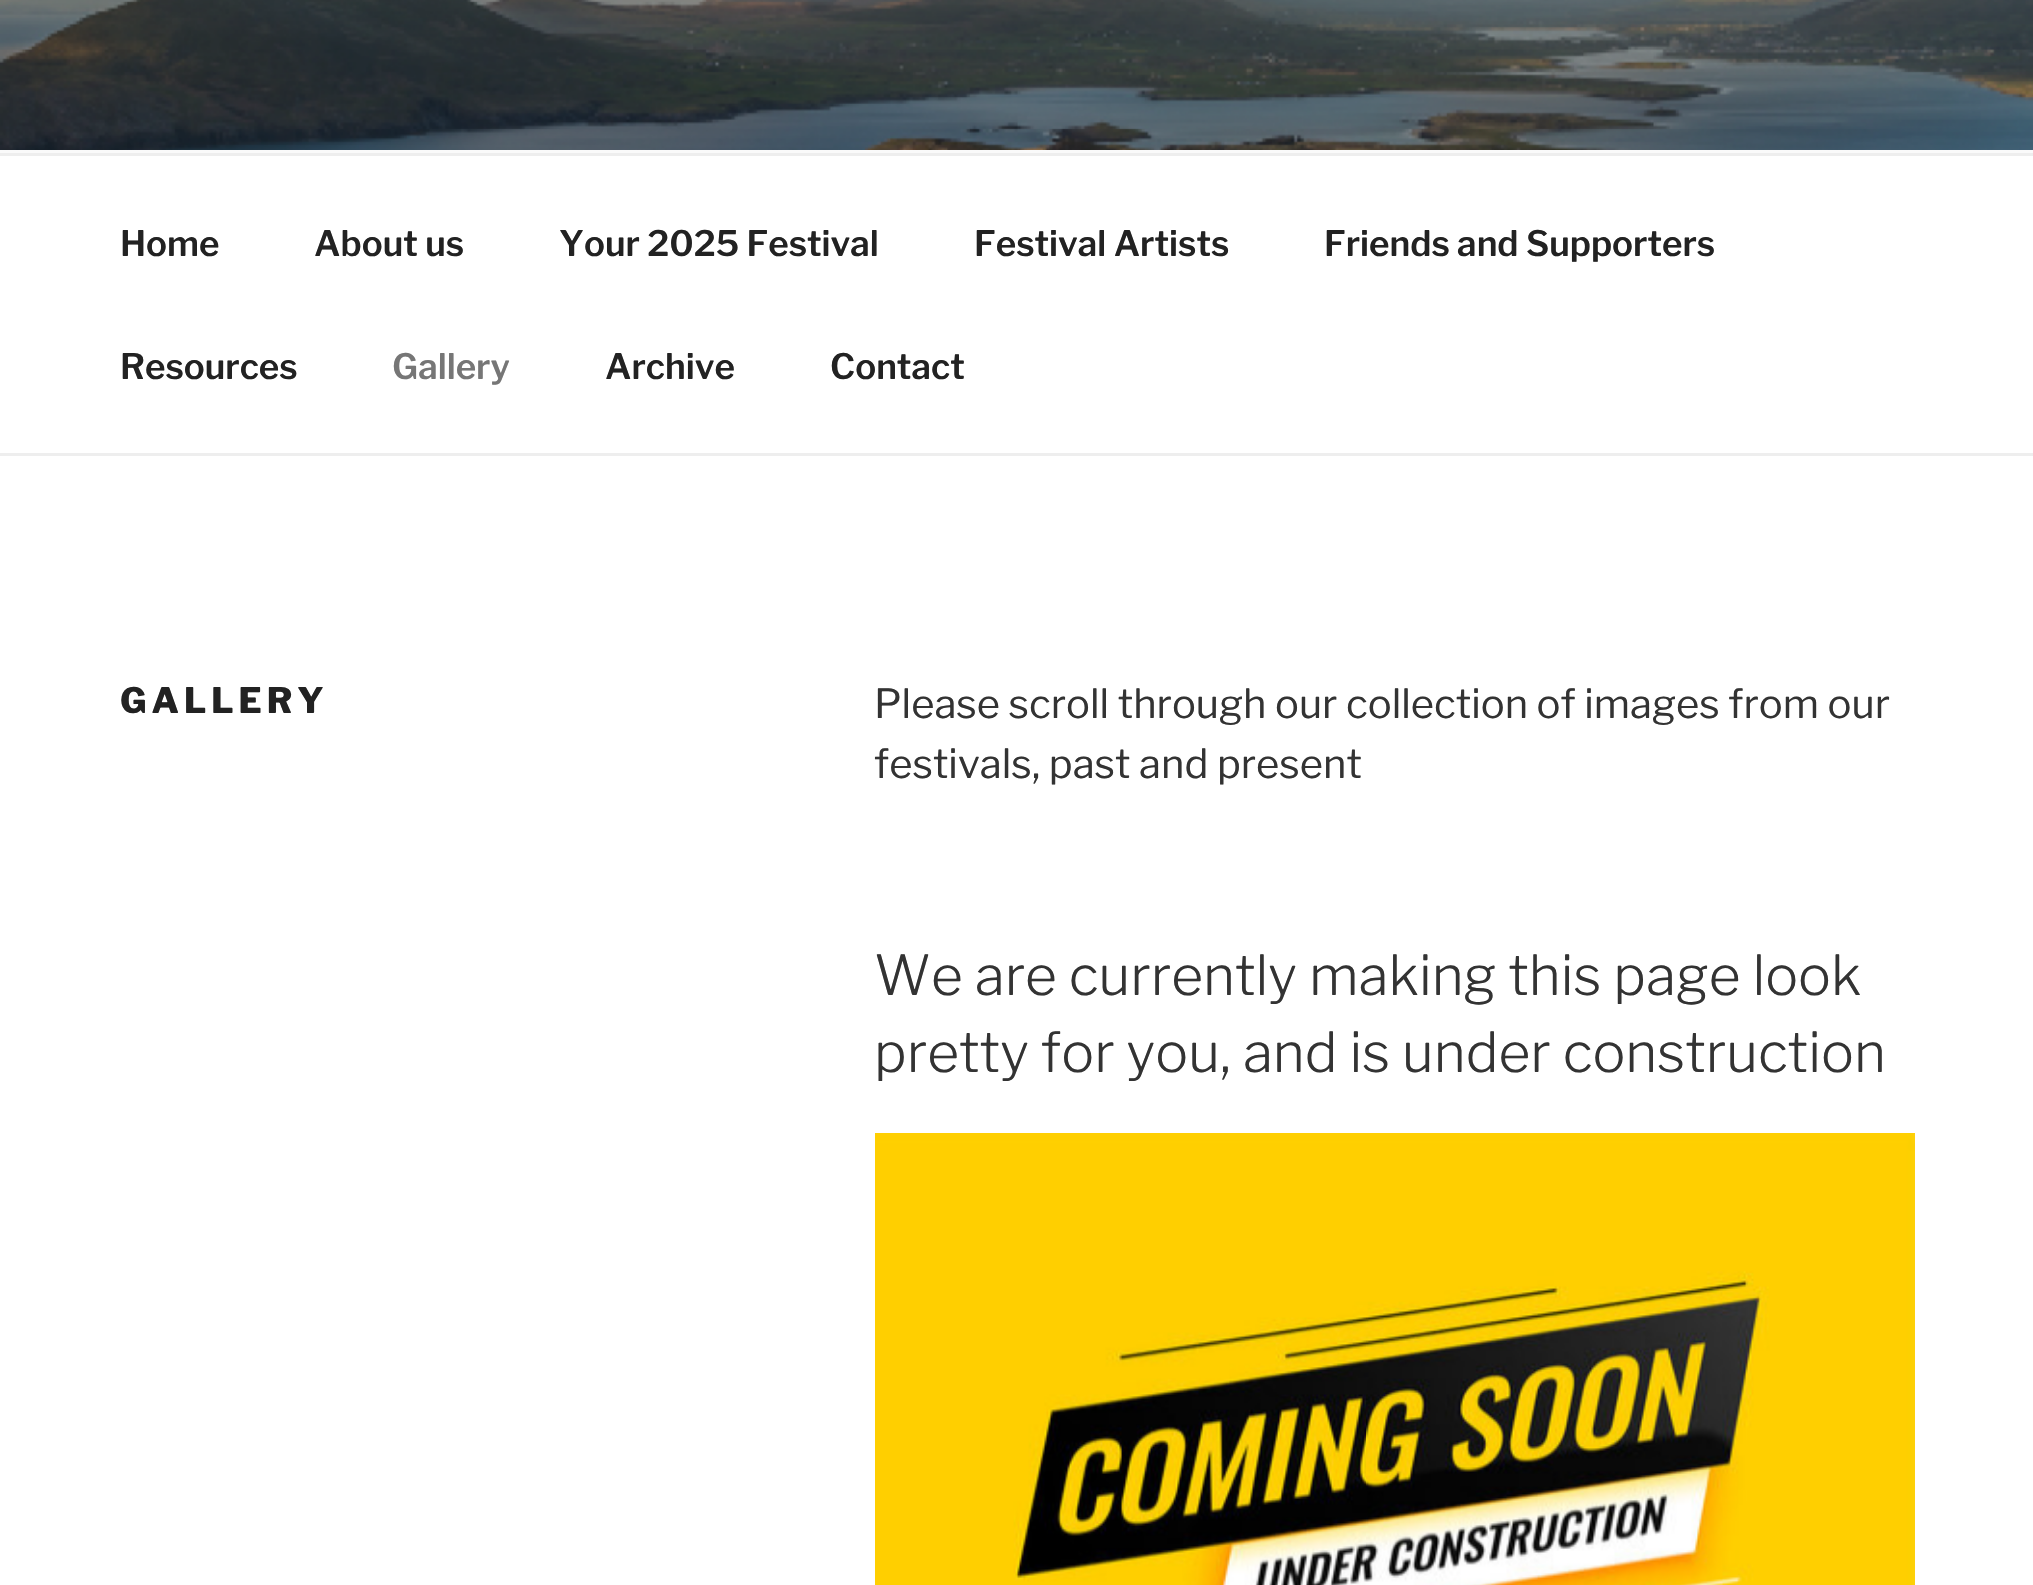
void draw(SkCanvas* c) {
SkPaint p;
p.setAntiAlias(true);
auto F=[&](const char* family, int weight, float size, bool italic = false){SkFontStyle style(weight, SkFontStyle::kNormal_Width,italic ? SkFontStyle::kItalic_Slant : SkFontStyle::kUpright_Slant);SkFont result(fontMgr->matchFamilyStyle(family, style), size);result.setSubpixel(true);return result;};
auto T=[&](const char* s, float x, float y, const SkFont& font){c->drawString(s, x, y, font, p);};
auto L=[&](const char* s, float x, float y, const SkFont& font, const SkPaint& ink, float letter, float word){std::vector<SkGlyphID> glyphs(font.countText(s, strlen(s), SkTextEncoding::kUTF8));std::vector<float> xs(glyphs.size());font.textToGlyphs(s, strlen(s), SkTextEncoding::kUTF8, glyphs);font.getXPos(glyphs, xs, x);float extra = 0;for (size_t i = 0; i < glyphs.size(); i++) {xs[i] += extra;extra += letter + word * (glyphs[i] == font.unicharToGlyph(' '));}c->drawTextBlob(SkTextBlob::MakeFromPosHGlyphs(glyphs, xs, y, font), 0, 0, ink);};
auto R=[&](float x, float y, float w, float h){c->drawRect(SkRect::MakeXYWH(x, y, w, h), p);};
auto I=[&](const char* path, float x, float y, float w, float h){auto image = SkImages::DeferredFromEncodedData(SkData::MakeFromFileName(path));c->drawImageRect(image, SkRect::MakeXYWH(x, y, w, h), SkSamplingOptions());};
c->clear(0xffffffff);
p.setColor(0xfffafafa);
R(0,150,2033,3);
I("1.png",0,0,2033,150);
p.setColor(0xffeeeeee);
R(0,153,2033,3);
R(0,453,2033,3);
auto f1 = F("Libre Franklin",600,35);
p.setColor(0xff222222);
T("Home",120,256,f1);
T("About us",314,256,f1);
T("Your 2025 Festival",559,256,f1);
T("Festival Artists",974,256,f1);
T("Friends and Supporters",1324,256,f1);
T("Resources",120,379,f1);
p.setColor(0xff767676);
T("Gallery",392,379,f1);
p.setColor(0xff222222);
T("Archive",605,379,f1);
T("Contact",830,379,f1);
auto f2 = F("Libre Franklin",800,35);
L("GALLERY",120,713,f2,p,5,0);
auto f3 = F("Libre Franklin",400,40);
p.setColor(0xff333333);
T("Please scroll through our collection of images from our",874,718,f3);
T("festivals, past and present",874,778,f3);
auto f4 = F("Libre Franklin",300,55);
T("We are currently making this page look",874,995,f4);
T("pretty for you, and is under construction",874,1072,f4);
I("2.png",875,1133,1040,452);
}
